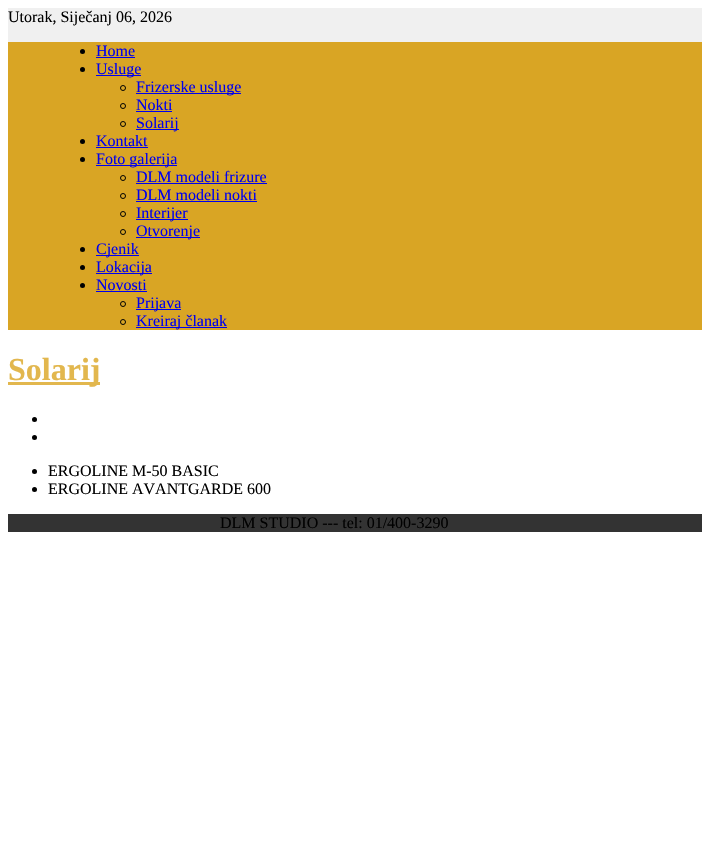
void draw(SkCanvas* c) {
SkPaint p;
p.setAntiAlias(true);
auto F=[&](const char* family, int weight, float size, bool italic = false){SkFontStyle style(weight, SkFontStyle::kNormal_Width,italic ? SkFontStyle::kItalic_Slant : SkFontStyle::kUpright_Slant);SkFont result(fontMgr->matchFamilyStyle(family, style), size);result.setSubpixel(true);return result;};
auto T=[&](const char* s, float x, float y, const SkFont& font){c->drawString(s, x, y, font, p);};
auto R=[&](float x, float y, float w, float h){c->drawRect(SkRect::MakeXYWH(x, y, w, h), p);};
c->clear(0xffffffff);
p.setColor(0xfff0f0f0);
R(8,8,694,34);
auto f1 = F("Liberation Serif",400,16);
p.setColor(0xff000000);
T("Utorak, Siječanj 06, 2026",8,22,f1);
p.setColor(0xffd9a524);
R(8,42,694,288);
p.setColor(0xff000000);
c->drawCircle(82.5,51.5,2.5,p);
p.setColor(0xff0000ee);
T("Home",96,56,f1);
R(96,57,39,1);
p.setColor(0xff000000);
c->drawCircle(82.5,69.5,2.5,p);
p.setColor(0xff0000ee);
R(96,75,45,1);
T("Usluge",96,74,f1);
p.setStroke(true);
p.setStrokeWidth(1);
p.setColor(0xff000000);
c->drawCircle(123,88,2.5,p);
p.setStroke(false);
p.setColor(0xff0000ee);
R(136,93,105,1);
T("Frizerske usluge",136,92,f1);
p.setStroke(true);
p.setColor(0xff000000);
c->drawCircle(123,106,2.5,p);
p.setStroke(false);
p.setColor(0xff0000ee);
T("Nokti",136,110,f1);
R(136,111,36,1);
p.setStroke(true);
p.setColor(0xff000000);
c->drawCircle(123,124,2.5,p);
p.setStroke(false);
p.setColor(0xff0000ee);
R(136,129,43,1);
T("Solarij",136,128,f1);
p.setColor(0xff000000);
c->drawCircle(82.5,141.5,2.5,p);
p.setColor(0xff0000ee);
T("Kontakt",96,146,f1);
R(96,147,52,1);
p.setColor(0xff000000);
c->drawCircle(82.5,159.5,2.5,p);
p.setColor(0xff0000ee);
R(96,165,81,1);
T("Foto galerija",96,164,f1);
p.setStroke(true);
p.setColor(0xff000000);
c->drawCircle(123,178,2.5,p);
p.setStroke(false);
p.setColor(0xff0000ee);
T("DLM modeli frizure",136,182,f1);
R(136,183,131,1);
p.setStroke(true);
p.setColor(0xff000000);
c->drawCircle(123,196,2.5,p);
p.setStroke(false);
p.setColor(0xff0000ee);
T("DLM modeli nokti",136,200,f1);
R(136,201,121,1);
p.setStroke(true);
p.setColor(0xff000000);
c->drawCircle(123,214,2.5,p);
p.setStroke(false);
p.setColor(0xff0000ee);
R(136,219,52,1);
T("Interijer",136,218,f1);
p.setStroke(true);
p.setColor(0xff000000);
c->drawCircle(123,232,2.5,p);
p.setStroke(false);
p.setColor(0xff0000ee);
R(136,237,64,1);
T("Otvorenje",136,236,f1);
p.setColor(0xff000000);
c->drawCircle(82.5,249.5,2.5,p);
p.setColor(0xff0000ee);
R(96,255,43,1);
T("Cjenik",96,254,f1);
p.setColor(0xff000000);
c->drawCircle(82.5,267.5,2.5,p);
p.setColor(0xff0000ee);
R(96,273,56,1);
T("Lokacija",96,272,f1);
p.setColor(0xff000000);
c->drawCircle(82.5,285.5,2.5,p);
p.setColor(0xff0000ee);
T("Novosti",96,290,f1);
R(96,291,51,1);
p.setStroke(true);
p.setColor(0xff000000);
c->drawCircle(123,304,2.5,p);
p.setStroke(false);
p.setColor(0xff0000ee);
R(136,309,45,1);
T("Prijava",136,308,f1);
p.setStroke(true);
p.setColor(0xff000000);
c->drawCircle(123,322,2.5,p);
p.setStroke(false);
p.setColor(0xff0000ee);
R(136,327,91,1);
T("Kreiraj članak",136,326,f1);
p.setColor(0xffe2b74e);
R(8,382,92,3);
auto f2 = F("Liberation Serif",700,32);
T("Solarij",8,380,f2);
p.setColor(0xff000000);
c->drawCircle(34.5,419.5,2.5,p);
c->drawCircle(34.5,437.5,2.5,p);
c->drawCircle(34.5,471.5,2.5,p);
T("ERGOLINE M-50 BASIC",48,476,f1);
c->drawCircle(34.5,489.5,2.5,p);
T("ERGOLINE AVANTGARDE 600",48,494,f1);
p.setColor(0xff333333);
R(8,514,694,18);
p.setColor(0xff000000);
T("DLM STUDIO --- tel: 01/400-3290",220,528,f1);
}
